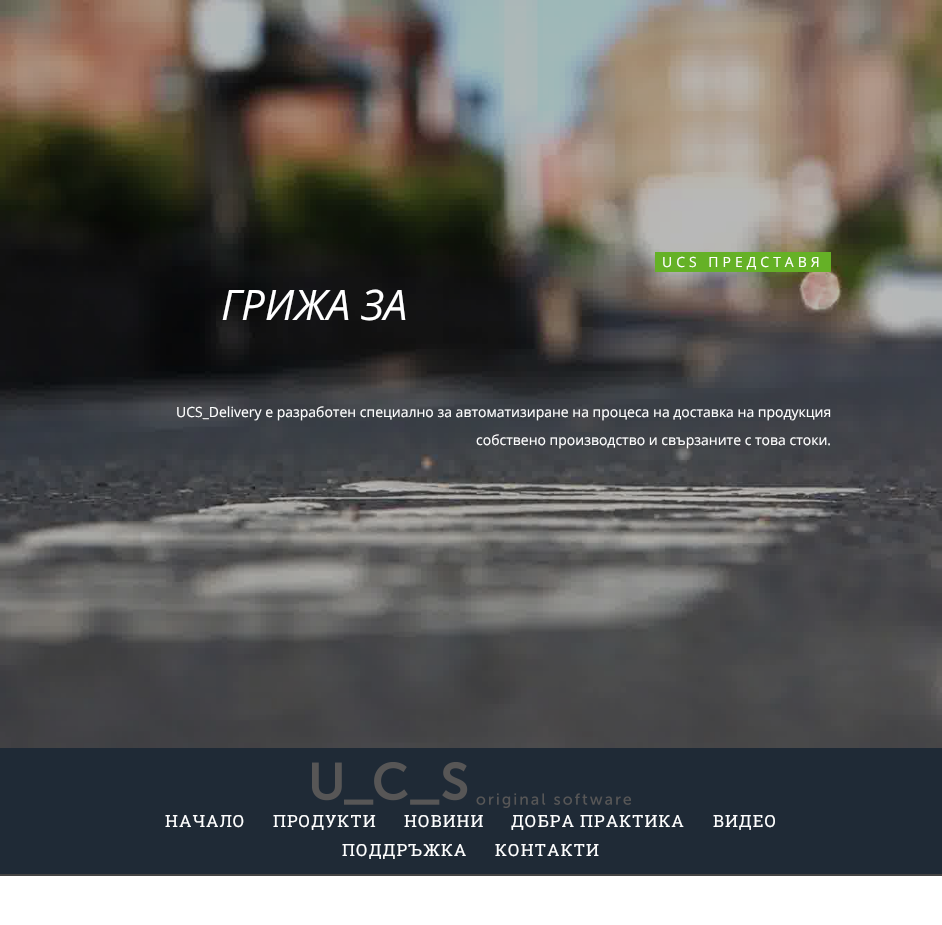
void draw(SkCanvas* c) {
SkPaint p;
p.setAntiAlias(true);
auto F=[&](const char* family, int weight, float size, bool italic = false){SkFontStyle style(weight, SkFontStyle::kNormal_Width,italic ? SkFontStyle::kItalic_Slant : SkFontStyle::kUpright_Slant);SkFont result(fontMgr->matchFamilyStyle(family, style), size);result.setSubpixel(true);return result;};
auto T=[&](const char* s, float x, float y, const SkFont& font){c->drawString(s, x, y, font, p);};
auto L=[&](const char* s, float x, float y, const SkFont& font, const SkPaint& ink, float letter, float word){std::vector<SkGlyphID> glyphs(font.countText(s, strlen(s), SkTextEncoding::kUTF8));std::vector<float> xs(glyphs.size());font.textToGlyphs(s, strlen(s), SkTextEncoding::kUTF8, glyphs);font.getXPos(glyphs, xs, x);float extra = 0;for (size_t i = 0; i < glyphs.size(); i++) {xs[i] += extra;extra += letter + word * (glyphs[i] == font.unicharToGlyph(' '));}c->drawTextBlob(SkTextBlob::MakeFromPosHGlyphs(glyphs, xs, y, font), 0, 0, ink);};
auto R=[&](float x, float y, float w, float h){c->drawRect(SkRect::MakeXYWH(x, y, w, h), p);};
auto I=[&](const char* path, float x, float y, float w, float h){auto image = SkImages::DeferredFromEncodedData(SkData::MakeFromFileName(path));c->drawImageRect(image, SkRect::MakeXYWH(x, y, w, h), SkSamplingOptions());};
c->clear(0xffffffff);
I("1.png",0,0,942,748);
p.setColor(0xff65b126);
R(655,252,176,20);
auto f1 = F("Open Sans",400,14);
p.setColor(0xffffffff);
L("UCS ПРЕДСТАВЯ",662,267,f1,p,4,0);
auto f2 = F("Open Sans",400,42,true);
T("ГРИЖА ЗА",221,320,f2);
T("UCS_Delivery e разработен специално за автоматизиране на процеса на доставка на продукция",176,417,f1);
T("собствено производство и свързаните с това стоки.",476,445,f1);
p.setColor(0xff444444);
R(0,874,942,2);
p.setColor(0xff1f2a36);
R(0,748,942,126);
I("2.png",312,762,319,46);
auto f3 = F("Roboto Slab",400,16.75);
p.setColor(0xffffffff);
L("НАЧАЛО",165,827,f3,p,1,0);
L("ПРОДУКТИ",273,827,f3,p,1,0);
L("НОВИНИ",404,827,f3,p,1,0);
L("ДОБРА ПРАКТИКА",511,827,f3,p,1,0);
L("ВИДЕО",713,827,f3,p,1,0);
L("ПОДДРЪЖКА",342,856,f3,p,1,0);
L("КОНТАКТИ",495,856,f3,p,1,0);
}
